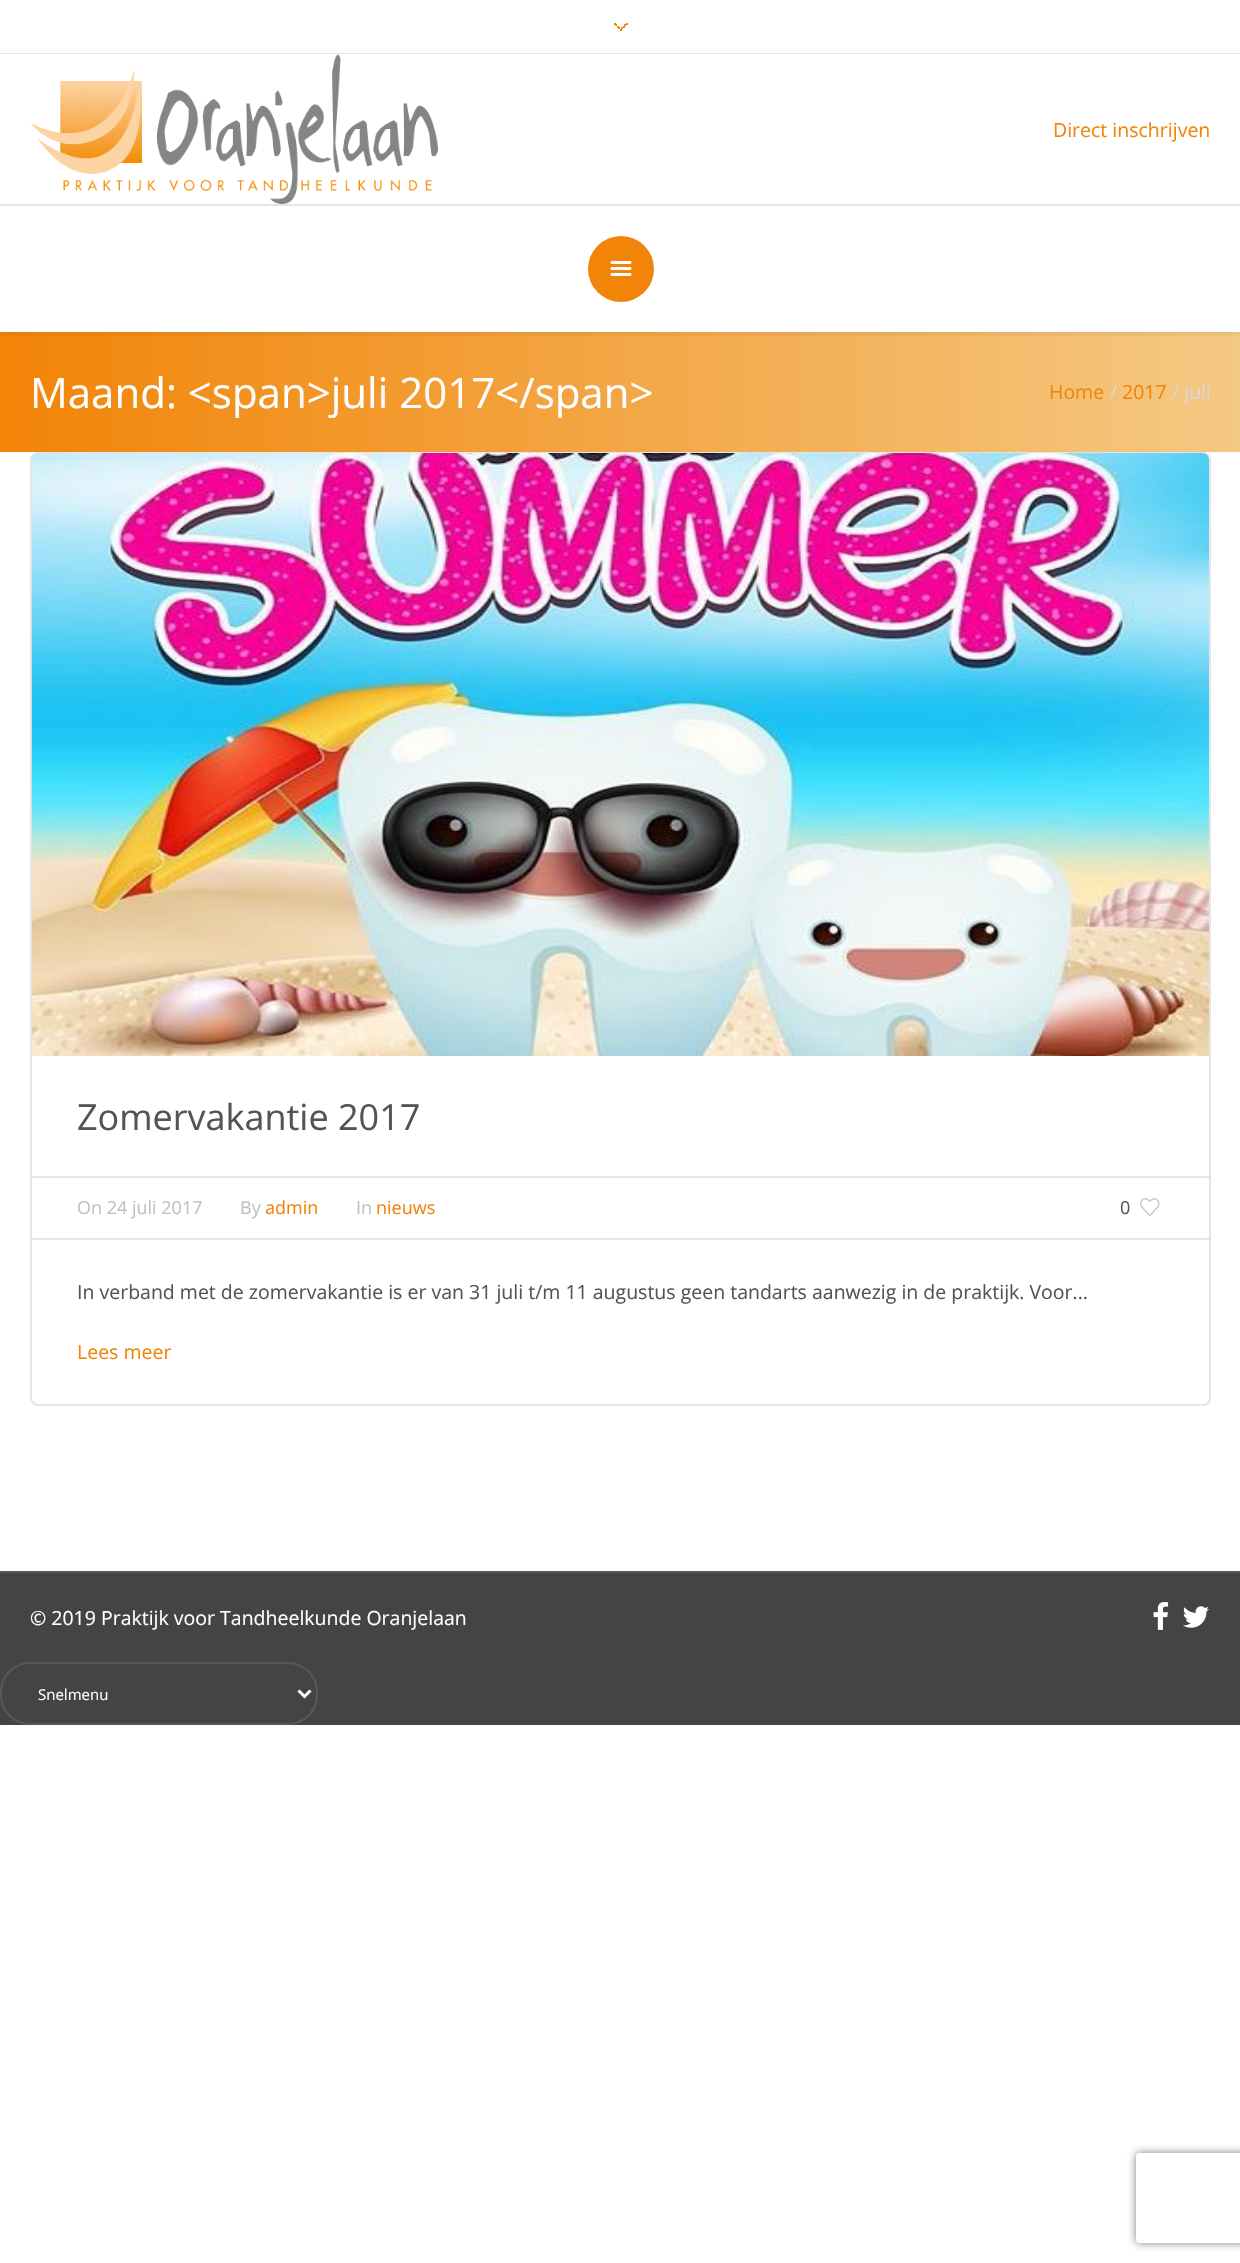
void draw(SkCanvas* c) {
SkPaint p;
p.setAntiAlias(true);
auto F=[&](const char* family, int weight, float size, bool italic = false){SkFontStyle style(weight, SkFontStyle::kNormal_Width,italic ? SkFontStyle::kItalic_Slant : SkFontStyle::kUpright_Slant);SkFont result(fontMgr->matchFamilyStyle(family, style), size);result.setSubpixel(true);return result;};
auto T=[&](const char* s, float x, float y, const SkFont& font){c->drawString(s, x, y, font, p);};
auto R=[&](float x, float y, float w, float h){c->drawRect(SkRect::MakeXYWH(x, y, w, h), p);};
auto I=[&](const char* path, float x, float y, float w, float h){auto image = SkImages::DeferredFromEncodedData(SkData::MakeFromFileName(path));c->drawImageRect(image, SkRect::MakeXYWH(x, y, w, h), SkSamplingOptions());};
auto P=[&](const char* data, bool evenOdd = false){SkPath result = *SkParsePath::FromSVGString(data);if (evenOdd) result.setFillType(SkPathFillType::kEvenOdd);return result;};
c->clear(0xffffffff);
{
const SkColor colors[] = {0xfff28407,0xfff4c984};
const float stops[] = {0,1};
const SkPoint ends[] = {{0,392}, {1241,392}};
p.setShader(SkGradientShader::MakeLinear(ends, colors, stops, 2, SkTileMode::kClamp));
p.setAlpha(255);
}
R(0,332,1240,120);
c->save();
c->clipRect(SkRect::MakeXYWH(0,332,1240,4));
p.setShader(nullptr);
p.setColor(0x1a000000);
p.setMaskFilter(SkMaskFilter::MakeBlur(kNormal_SkBlurStyle, 4));
c->drawRect(SkRect::MakeXYWH(0,2,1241,331),p);
p.setMaskFilter(nullptr);
c->restore();
p.setColor(0xffe5e5e5);
R(0,53,1240,1);
p.setColor(0xfff28407);
R(620,29,2,2);
R(626,23,2,2);
R(615,24,2,2);
R(614,23,2,2);
R(624,24,2,2);
R(623,26,2,2);
R(618,27,2,2);
R(617,26,2,2);
R(621,27,2,2);
I("1.png",30,54,408,150);
auto f1 = F("Open Sans",400,19.5);
T("Direct inschrijven",1053,137,f1);
p.setColor(0xffe5e5e5);
R(0,204,1240,2);
p.setColor(0xffffffff);
R(0,331,1240,1);
p.setColor(0xfff28407);
c->drawCircle(621,269,33,p);
I("2.png",610,261,22,15);
auto f2 = F("Open Sans",400,42);
p.setColor(0xffffffff);
T("Maand: <span>juli 2017</span>",30,408,f2);
p.setColor(0xfff28407);
T("Home",1049,399,f1);
p.setColor(0xffd8d8d8);
T("/",1110,399,f1);
p.setColor(0xfff28407);
T("2017",1122,399,f1);
p.setColor(0xffd8d8d8);
T("/ juli",1172,399,f1);
p.setStroke(true);
p.setStrokeWidth(2);
p.setColor(0xffe5e5e5);
c->drawRoundRect(SkRect::MakeXYWH(31,453,1179,952),7,7,p);
I("3.png",31,453,1178,603);
auto f3 = F("Open Sans",400,36);
p.setStroke(false);
p.setColor(0xff545454);
T("Zomervakantie 2017",77,1130,f3);
p.setColor(0xffe5e5e5);
R(32,1176,1177,2);
R(32,1238,1177,2);
auto f4 = F("Open Sans",400,18);
p.setColor(0xffc0c0c0);
T("On 24 juli 2017",77,1214,f4);
T("By",240,1214,f4);
p.setColor(0xfff28407);
T("admin",265,1214,f4);
p.setColor(0xffc0c0c0);
T("In",356,1214,f4);
p.setColor(0xfff28407);
T("nieuws",376,1214,f4);
p.setColor(0xff545454);
T("0",1120,1214,f4);
I("4.png",1140,1198,20,18);
T("In verband met de zomervakantie is er van 31 juli t/m 11 augustus geen tandarts aanwezig in de praktijk. Voor...",77,1299,f1);
p.setColor(0xfff28407);
T("Lees meer",77,1359,f1);
p.setColor(0xff444444);
R(0,1573,1240,152);
p.setColor(0xff575757);
R(0,1571,1240,2);
p.setColor(0xffffffff);
T("© 2019 Praktijk voor Tandheelkunde Oranjelaan",30,1625,f1);
I("5.png",1153,1602,16,28);
I("6.png",1183,1606,26,22);
p.setStroke(true);
p.setColor(0xff575757);
c->drawRoundRect(SkRect::MakeXYWH(1,1663,316,61),29,29,p);
p.setStrokeWidth(3);
p.setColor(0xffffffff);
c->drawPath(P("M298.5 1690.5l6 6l6-6"),p);
auto f5 = F("Open Sans",400,15);
p.setStroke(false);
T("Snelmenu",38,1700,f5);
c->save();
c->clipPath(P("M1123 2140h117v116h-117zm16 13h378c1.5 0 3 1.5 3 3v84c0 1.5-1.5 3-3 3h-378c-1.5 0-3-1.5-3-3v-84c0-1.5 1.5-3 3-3z",true),true);
p.setColor(0xff808080);
p.setMaskFilter(SkMaskFilter::MakeBlur(kNormal_SkBlurStyle, 4));
c->drawRoundRect(SkRect::MakeXYWH(1136,2153,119,90),3,3,p);
p.setMaskFilter(nullptr);
c->restore();
}
